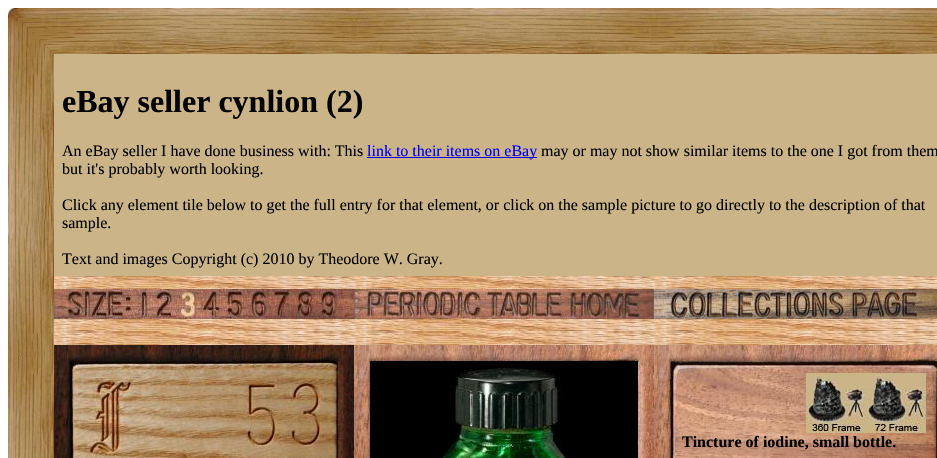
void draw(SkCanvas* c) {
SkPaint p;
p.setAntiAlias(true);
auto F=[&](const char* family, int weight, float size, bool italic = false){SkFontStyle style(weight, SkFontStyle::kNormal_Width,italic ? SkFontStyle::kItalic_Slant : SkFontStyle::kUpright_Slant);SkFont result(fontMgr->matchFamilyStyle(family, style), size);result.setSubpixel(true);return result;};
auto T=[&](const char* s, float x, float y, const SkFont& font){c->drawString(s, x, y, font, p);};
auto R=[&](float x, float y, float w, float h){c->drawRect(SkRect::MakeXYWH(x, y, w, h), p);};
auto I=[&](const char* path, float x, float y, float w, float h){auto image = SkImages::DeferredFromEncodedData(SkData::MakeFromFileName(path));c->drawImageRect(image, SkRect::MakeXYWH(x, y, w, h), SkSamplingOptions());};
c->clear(0xffffffff);
I("1.png",8,8,46,46);
I("2.png",54,8,883,46);
I("3.png",8,54,46,404);
p.setColor(0xffcbb488);
R(54,54,883,222);
auto f1 = F("Liberation Serif",700,32);
p.setColor(0xff000000);
T("eBay seller cynlion (2)",62,112,f1);
auto f2 = F("Liberation Serif",400,16);
T("An eBay seller I have done business with: This",62,156,f2);
p.setColor(0xff0000ee);
R(367,157,170,1);
T("link to their items on eBay",367,156,f2);
p.setColor(0xff000000);
T("may or may not show similar items to the one I got from them",541,156,f2);
T("but it's probably worth looking.",62,174,f2);
T("Click any element tile below to get the full entry for that element, or click on the sample picture to go directly to the description of that",62,210,f2);
T("sample.",62,228,f2);
T("Text and images Copyright (c) 2010 by Theodore W. Gray.",62,264,f2);
I("4.png",54,276,883,13);
I("5.png",54,289,300,30);
I("6.png",354,289,300,30);
I("7.png",654,289,283,30);
I("4.png",54,319,883,13);
I("4.png",54,332,883,13);
I("8.png",54,345,300,113);
I("9.png",354,345,300,113);
I("10.png",370,361,268,97);
I("11.png",654,345,283,113);
I("12.png",806,373,60,60);
I("13.png",866,373,60,60);
auto f3 = F("Liberation Serif",700,16);
T("Tincture of iodine, small bottle.",682,447,f3);
}
